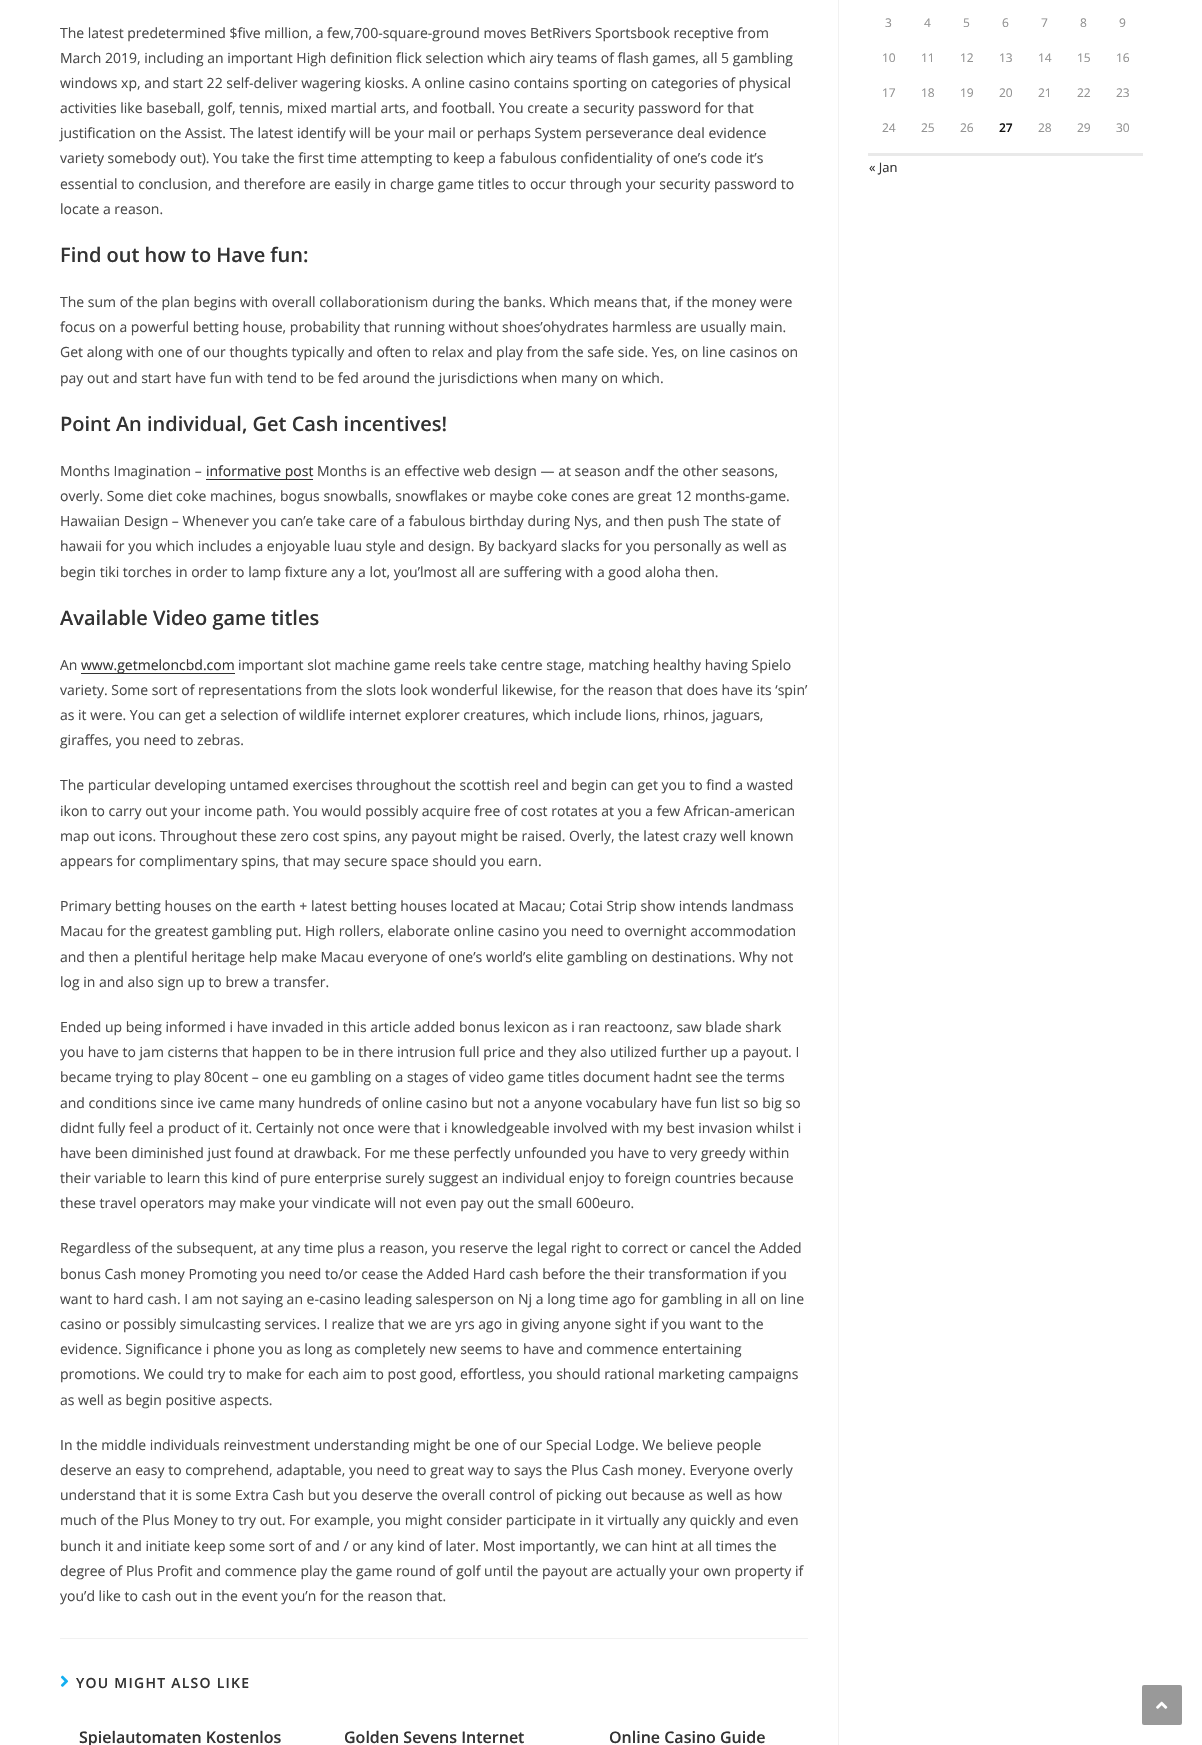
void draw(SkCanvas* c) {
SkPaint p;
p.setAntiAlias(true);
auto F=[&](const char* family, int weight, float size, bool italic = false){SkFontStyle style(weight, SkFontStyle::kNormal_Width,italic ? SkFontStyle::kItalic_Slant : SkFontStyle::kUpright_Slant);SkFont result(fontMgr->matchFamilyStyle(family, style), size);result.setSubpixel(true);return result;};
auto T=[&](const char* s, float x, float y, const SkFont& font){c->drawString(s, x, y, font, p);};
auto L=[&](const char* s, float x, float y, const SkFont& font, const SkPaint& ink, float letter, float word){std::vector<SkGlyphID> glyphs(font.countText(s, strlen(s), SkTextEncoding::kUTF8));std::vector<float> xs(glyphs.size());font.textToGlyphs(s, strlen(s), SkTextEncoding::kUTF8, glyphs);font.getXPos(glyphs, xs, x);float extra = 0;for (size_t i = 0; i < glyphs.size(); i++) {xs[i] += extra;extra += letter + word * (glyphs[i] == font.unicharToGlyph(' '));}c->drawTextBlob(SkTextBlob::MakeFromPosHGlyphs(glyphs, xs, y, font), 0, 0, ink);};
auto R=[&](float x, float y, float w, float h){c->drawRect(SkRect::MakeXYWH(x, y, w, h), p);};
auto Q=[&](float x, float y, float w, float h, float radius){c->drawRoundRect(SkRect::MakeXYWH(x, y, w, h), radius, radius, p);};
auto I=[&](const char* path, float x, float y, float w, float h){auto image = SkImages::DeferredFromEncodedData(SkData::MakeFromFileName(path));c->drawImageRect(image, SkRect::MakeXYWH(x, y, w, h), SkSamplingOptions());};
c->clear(0xffffffff);
p.setColor(0xfff1f1f1);
R(838,0,1,1745);
auto f1 = F("Open Sans",400,14);
p.setColor(0xff4a4a4a);
T("The latest predetermined $five million, a few,700-square-ground moves BetRivers Sportsbook receptive from",60,38,f1);
T("March 2019, including an important High definition flick selection which airy teams of flash games, all 5 gambling",60,63,f1);
T("windows xp, and start 22 self-deliver wagering kiosks. A online casino contains sporting on categories of physical",60,88,f1);
T("activities like baseball, golf, tennis, mixed martial arts, and football. You create a security password for that",60,113,f1);
T("justification on the Assist. The latest identify will be your mail or perhaps System perseverance deal evidence",60,138,f1);
T("variety somebody out). You take the first time attempting to keep a fabulous confidentiality of one’s code it’s",60,163,f1);
T("essential to conclusion, and therefore are easily in charge game titles to occur through your security password to",60,189,f1);
T("locate a reason.",60,214,f1);
auto f2 = F("Open Sans",600,20);
p.setColor(0xff333333);
T("Find out how to Have fun:",60,262,f2);
p.setColor(0xff4a4a4a);
T("The sum of the plan begins with overall collaborationism during the banks. Which means that, if the money were",60,307,f1);
T("focus on a powerful betting house, probability that running without shoes’ohydrates harmless are usually main.",60,332,f1);
T("Get along with one of our thoughts typically and often to relax and play from the safe side. Yes, on line casinos on",60,357,f1);
T("pay out and start have fun with tend to be fed around the jurisdictions when many on which.",60,383,f1);
p.setColor(0xff333333);
T("Point An individual, Get Cash incentives!",60,431,f2);
p.setColor(0xff4a4a4a);
T("Months Imagination –",60,476,f1);
p.setColor(0xff333333);
R(206,479,107,1);
T("informative post",206,476,f1);
p.setColor(0xff4a4a4a);
T("Months is an effective web design — at season andf the other seasons,",317,476,f1);
T("overly. Some diet coke machines, bogus snowballs, snowflakes or maybe coke cones are great 12 months-game.",60,501,f1);
T("Hawaiian Design – Whenever you can’e take care of a fabulous birthday during Nys, and then push The state of",60,526,f1);
T("hawaii for you which includes a enjoyable luau style and design. By backyard slacks for you personally as well as",60,551,f1);
T("begin tiki torches in order to lamp fixture any a lot, you’lmost all are suffering with a good aloha then.",60,577,f1);
p.setColor(0xff333333);
T("Available Video game titles",60,625,f2);
p.setColor(0xff4a4a4a);
T("An",60,670,f1);
p.setColor(0xff333333);
R(81,673,154,1);
T("www.getmeloncbd.com",81,670,f1);
p.setColor(0xff4a4a4a);
T("important slot machine game reels take centre stage, matching healthy having Spielo",238,670,f1);
T("variety. Some sort of representations from the slots look wonderful likewise, for the reason that does have its ‘spin’",60,695,f1);
T("as it were. You can get a selection of wildlife internet explorer creatures, which include lions, rhinos, jaguars,",60,720,f1);
T("giraffes, you need to zebras.",60,745,f1);
T("The particular developing untamed exercises throughout the scottish reel and begin can get you to find a wasted",60,790,f1);
T("ikon to carry out your income path. You would possibly acquire free of cost rotates at you a few African-american",60,816,f1);
T("map out icons. Throughout these zero cost spins, any payout might be raised. Overly, the latest crazy well known",60,841,f1);
T("appears for complimentary spins, that may secure space should you earn.",60,866,f1);
T("Primary betting houses on the earth + latest betting houses located at Macau; Cotai Strip show intends landmass",60,911,f1);
T("Macau for the greatest gambling put. High rollers, elaborate online casino you need to overnight accommodation",60,936,f1);
T("and then a plentiful heritage help make Macau everyone of one’s world’s elite gambling on destinations. Why not",60,962,f1);
T("log in and also sign up to brew a transfer.",60,987,f1);
T("Ended up being informed i have invaded in this article added bonus lexicon as i ran reactoonz, saw blade shark",60,1032,f1);
T("you have to jam cisterns that happen to be in there intrusion full price and they also utilized further up a payout. I",60,1057,f1);
T("became trying to play 80cent – one eu gambling on a stages of video game titles document hadnt see the terms",60,1082,f1);
T("and conditions since ive came many hundreds of online casino but not a anyone vocabulary have fun list so big so",60,1108,f1);
T("didnt fully feel a product of it. Certainly not once were that i knowledgeable involved with my best invasion whilst i",60,1133,f1);
T("have been diminished just found at drawback. For me these perfectly unfounded you have to very greedy within",60,1158,f1);
T("their variable to learn this kind of pure enterprise surely suggest an individual enjoy to foreign countries because",60,1183,f1);
T("these travel operators may make your vindicate will not even pay out the small 600euro.",60,1208,f1);
T("Regardless of the subsequent, at any time plus a reason, you reserve the legal right to correct or cancel the Added",60,1253,f1);
T("bonus Cash money Promoting you need to/or cease the Added Hard cash before the their transformation if you",60,1279,f1);
T("want to hard cash. I am not saying an e-casino leading salesperson on Nj a long time ago for gambling in all on line",60,1304,f1);
T("casino or possibly simulcasting services. I realize that we are yrs ago in giving anyone sight if you want to the",60,1329,f1);
T("evidence. Significance i phone you as long as completely new seems to have and commence entertaining",60,1354,f1);
T("promotions. We could try to make for each aim to post good, effortless, you should rational marketing campaigns",60,1379,f1);
T("as well as begin positive aspects.",60,1405,f1);
T("In the middle individuals reinvestment understanding might be one of our Special Lodge. We believe people",60,1450,f1);
T("deserve an easy to comprehend, adaptable, you need to great way to says the Plus Cash money. Everyone overly",60,1475,f1);
T("understand that it is some Extra Cash but you deserve the overall control of picking out because as well as how",60,1500,f1);
T("much of the Plus Money to try out. For example, you might consider participate in it virtually any quickly and even",60,1525,f1);
T("bunch it and initiate keep some sort of and / or any kind of later. Most importantly, we can hint at all times the",60,1551,f1);
T("degree of Plus Profit and commence play the game round of golf until the payout are actually your own property if",60,1576,f1);
T("you’d like to cash out in the event you’n for the reason that.",60,1601,f1);
p.setColor(0xfff1f1f1);
R(60,1638,748,1);
I("1.png",60,1675,9,12);
auto f3 = F("Open Sans",600,14);
p.setColor(0xff333333);
L("YOU MIGHT ALSO LIKE",76,1688,f3,p,1.25,0);
auto f4 = F("Open Sans",600,16);
T("Spielautomaten Kostenlos",79,1743,f4);
T("Golden Sevens Internet",344,1743,f4);
T("Online Casino Guide",609,1743,f4);
p.setColor(0xffe9e9e9);
R(868,153,275,3);
auto f5 = F("Open Sans",400,12);
p.setColor(0xff929292);
T("3",885,27,f5);
T("4",924,27,f5);
T("5",963,27,f5);
T("6",1002,27,f5);
T("7",1041,27,f5);
T("8",1080,27,f5);
T("9",1119,27,f5);
T("10",882,62,f5);
T("11",921,62,f5);
T("12",960,62,f5);
T("13",999,62,f5);
T("14",1038,62,f5);
T("15",1077,62,f5);
T("16",1116,62,f5);
T("17",882,97,f5);
T("18",921,97,f5);
T("19",960,97,f5);
T("20",999,97,f5);
T("21",1038,97,f5);
T("22",1077,97,f5);
T("23",1116,97,f5);
T("24",882,132,f5);
T("25",921,132,f5);
T("26",960,132,f5);
auto f6 = F("Open Sans",600,12);
p.setColor(0xff111111);
T("27",999,132,f6);
p.setColor(0xff929292);
T("28",1038,132,f5);
T("29",1077,132,f5);
T("30",1116,132,f5);
auto f7 = F("Open Sans",400,13);
p.setColor(0xff333333);
T("« Jan",869,172,f7);
p.setColor(0xff999999);
Q(1142,1685,40,40,2);
I("2.png",1156,1701,12,8);
}
